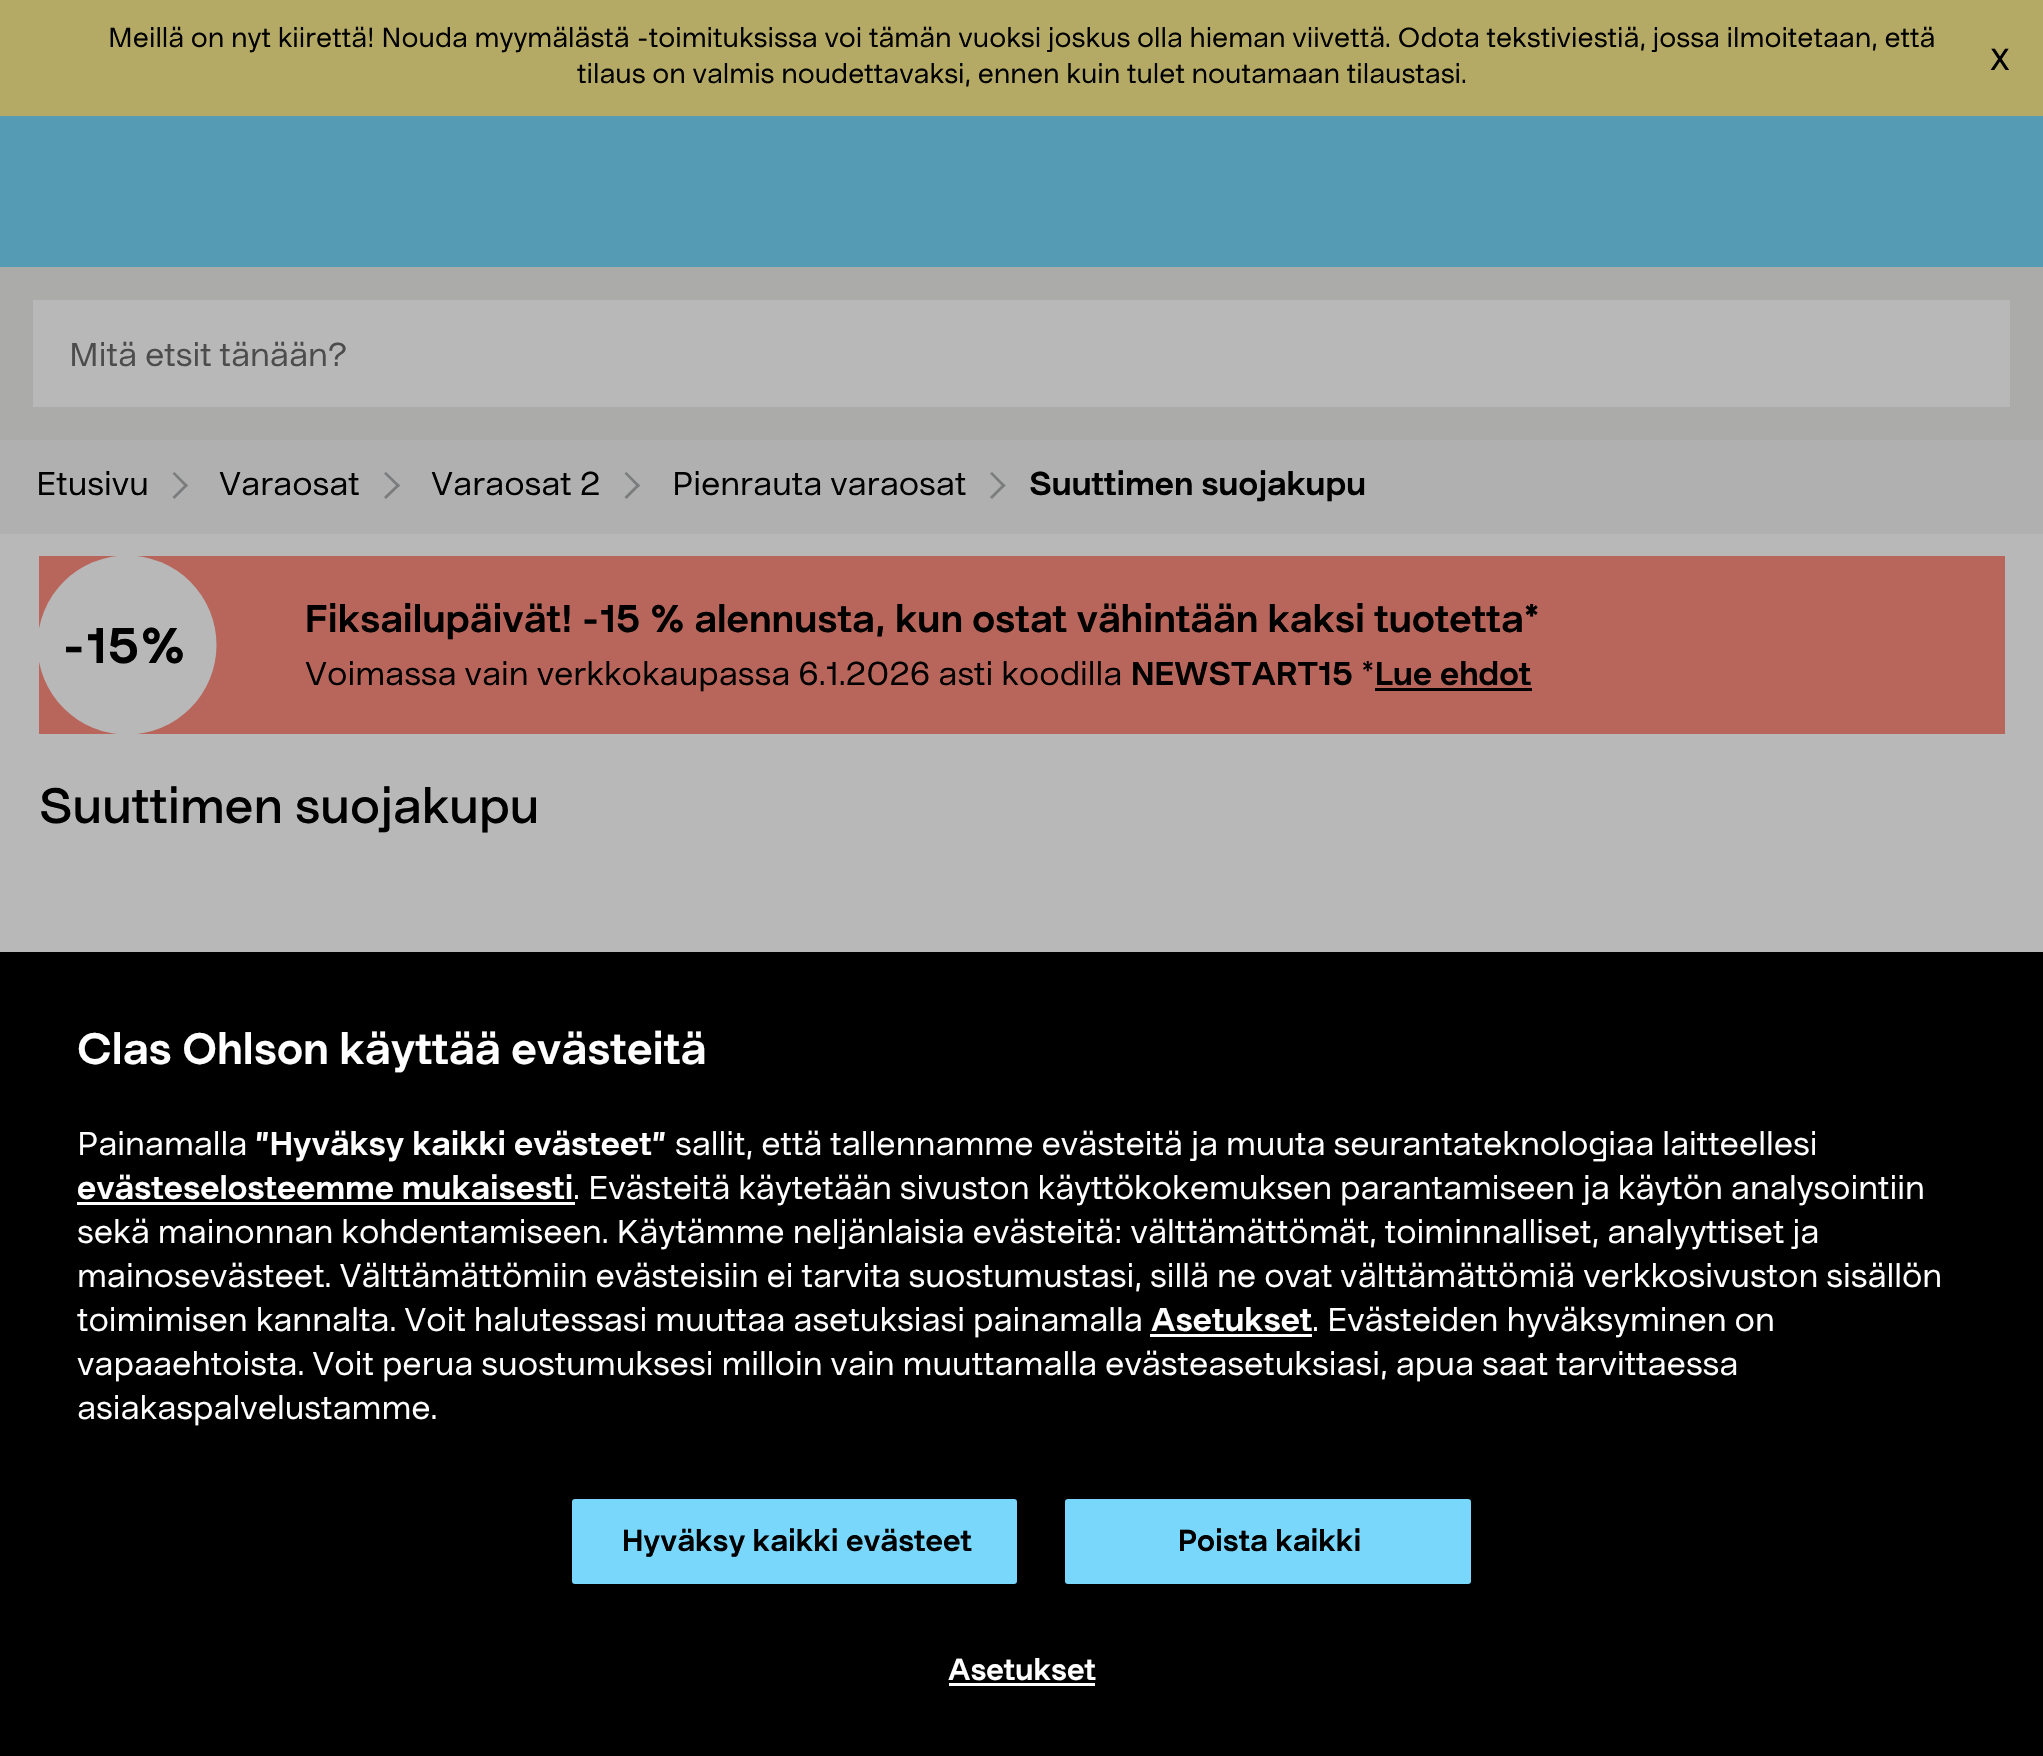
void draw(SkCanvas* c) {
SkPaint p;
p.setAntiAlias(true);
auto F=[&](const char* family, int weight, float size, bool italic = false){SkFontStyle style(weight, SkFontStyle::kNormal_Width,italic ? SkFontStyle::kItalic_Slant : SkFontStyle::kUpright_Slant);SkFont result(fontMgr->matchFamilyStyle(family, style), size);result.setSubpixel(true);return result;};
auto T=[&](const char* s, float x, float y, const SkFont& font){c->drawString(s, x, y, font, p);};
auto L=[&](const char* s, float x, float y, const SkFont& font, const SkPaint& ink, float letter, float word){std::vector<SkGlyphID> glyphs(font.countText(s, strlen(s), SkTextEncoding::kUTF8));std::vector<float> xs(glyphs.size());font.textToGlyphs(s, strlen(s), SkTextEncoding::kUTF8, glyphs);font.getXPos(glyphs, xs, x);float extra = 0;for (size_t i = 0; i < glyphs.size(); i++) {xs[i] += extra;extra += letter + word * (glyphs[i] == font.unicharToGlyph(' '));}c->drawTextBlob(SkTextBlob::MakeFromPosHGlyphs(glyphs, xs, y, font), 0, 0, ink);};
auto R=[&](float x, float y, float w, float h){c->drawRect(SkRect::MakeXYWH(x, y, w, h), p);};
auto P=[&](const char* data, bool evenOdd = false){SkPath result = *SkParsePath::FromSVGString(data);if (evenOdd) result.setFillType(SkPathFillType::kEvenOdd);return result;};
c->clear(0xffb8b8b8);
p.setColor(0xffb4a965);
R(0,0,2043,116);
auto f1 = F("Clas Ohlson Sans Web",400,27.5);
p.setColor(0xff000000);
T("Meillä on nyt kiirettä! Nouda myymälästä -toimituksissa voi tämän vuoksi joskus olla hieman viivettä. Odota tekstiviestiä, jossa ilmoitetaan, että",108,47,f1);
auto f2 = F("Clas Ohlson Sans Web",400,41);
T("x",1990,70,f2);
T("tilaus on valmis noudettavaksi, ennen kuin tulet noutamaan tilaustasi.",577,83,f1);
R(0,952,2043,804);
auto f3 = F("Clas Ohlson Sans Web",700,44);
p.setColor(0xffffffff);
T("Clas Ohlson käyttää evästeitä",77,1064,f3);
auto f4 = F("Clas Ohlson Sans Web",400,33);
T("Painamalla",77,1155,f4);
auto f5 = F("Clas Ohlson Sans Web",700,33);
T("”Hyväksy kaikki evästeet”",255,1155,f5);
T("sallit, että tallennamme evästeitä ja muuta seurantateknologiaa laitteellesi",675,1155,f4);
T("evästeselosteemme mukaisesti",77,1199,f5);
R(77,1202,498,3);
T(". Evästeitä käytetään sivuston käyttökokemuksen parantamiseen ja käytön analysointiin",573,1199,f4);
T("sekä mainonnan kohdentamiseen. Käytämme neljänlaisia evästeitä: välttämättömät, toiminnalliset, analyyttiset ja",77,1243,f4);
T("mainosevästeet. Välttämättömiin evästeisiin ei tarvita suostumustasi, sillä ne ovat välttämättömiä verkkosivuston sisällön",77,1287,f4);
T("toimimisen kannalta. Voit halutessasi muuttaa asetuksiasi painamalla",77,1331,f4);
T("Asetukset",1151,1331,f5);
R(1150,1334,162,3);
T(". Evästeiden hyväksyminen on",1312,1331,f4);
T("vapaaehtoista. Voit perua suostumuksesi milloin vain muuttamalla evästeasetuksiasi, apua saat tarvittaessa",77,1375,f4);
T("asiakaspalvelustamme.",77,1419,f4);
p.setColor(0xff78d7fa);
c->drawRoundRect(SkRect::MakeXYWH(570.5,1497.5,448,88),4.5,4.5,p);
p.setStroke(true);
p.setStrokeWidth(3);
p.setColor(0xff000000);
c->drawRoundRect(SkRect::MakeXYWH(570.5,1497.5,448,88),4.5,4.5,p);
auto f6 = F("Clas Ohlson Sans Web",700,30.25);
p.setStroke(false);
T("Hyväksy kaikki evästeet",622,1551,f6);
p.setColor(0xff78d7fa);
c->drawRoundRect(SkRect::MakeXYWH(1063.5,1497.5,409,88),4.5,4.5,p);
p.setStroke(true);
p.setColor(0xff000000);
c->drawRoundRect(SkRect::MakeXYWH(1063.5,1497.5,409,88),4.5,4.5,p);
p.setStroke(false);
T("Poista kaikki",1178,1551,f6);
p.setColor(0xffffffff);
T("Asetukset",948,1680,f6);
R(949,1683,146,3);
p.setColor(0xff569bb4);
R(0,116,2043,151);
p.setColor(0xffababaa);
R(0,267,2043,173);
p.setColor(0xffb8b8b8);
R(33,300,1977,107);
p.setColor(0xff4c4c4c);
T("Mitä etsit tänään?",69,366,f4);
p.setColor(0xffb0b0b0);
R(0,440,2043,94);
p.setColor(0xff000000);
T("Etusivu",36,495,f4);
p.setColor(0xff7a7c7d);
c->drawPath(P("M172.5 473.5l2-1.5l13.5 13.5l-2 2z"),p);
c->drawPath(P("M172.5 497l13.5-13.5l2 2l-13.5 13.5z"),p);
p.setColor(0xff000000);
T("Varaosat",219,495,f4);
p.setColor(0xff7a7c7d);
c->drawPath(P("M384 473.5l2-1.5l14 13.5l-2 2z"),p);
c->drawPath(P("M384 497l14-13.5l2 2l-14 13.5z"),p);
p.setColor(0xff000000);
T("Varaosat 2",431,495,f4);
p.setColor(0xff7a7c7d);
c->drawPath(P("M624.5 473.5l2-1.5l13.5 13.5l-2 2z"),p);
c->drawPath(P("M624.5 497l13.5-13.5l2 2l-13.5 13.5z"),p);
p.setColor(0xff000000);
T("Pienrauta varaosat",672,495,f4);
p.setColor(0xff7a7c7d);
c->drawPath(P("M990 473.5l2-1.5l13.5 13.5l-2 2z"),p);
c->drawPath(P("M990 497l13.5-13.5l2 2l-13.5 13.5z"),p);
p.setColor(0xff000000);
T("Suuttimen suojakupu",1029,495,f5);
p.setColor(0xffb8665c);
R(39,556,1966,178);
c->save();
c->clipRect(SkRect::MakeXYWH(39,556,178,178));
p.setColor(0xffb8b8b8);
c->drawCircle(127,645,89.5,p);
c->restore();
auto f7 = F("Clas Ohlson Sans Web",700,50);
p.setColor(0xff000000);
L("-15%",62,663,f7,p,.5,0);
auto f8 = F("Clas Ohlson Sans Web",700,38.5);
T("Fiksailupäivät! -15 % alennusta, kun ostat vähintään kaksi tuotetta*",305,632,f8);
T("Voimassa vain verkkokaupassa 6.1.2026 asti koodilla",305,685,f4);
T("NEWSTART15",1131,685,f5);
T("*",1361,685,f4);
T("Lue ehdot",1375,685,f5);
R(1375,688,157,3);
auto f9 = F("Clas Ohlson Sans Web",500,49.5);
T("Suuttimen suojakupu",39,823,f9);
}
